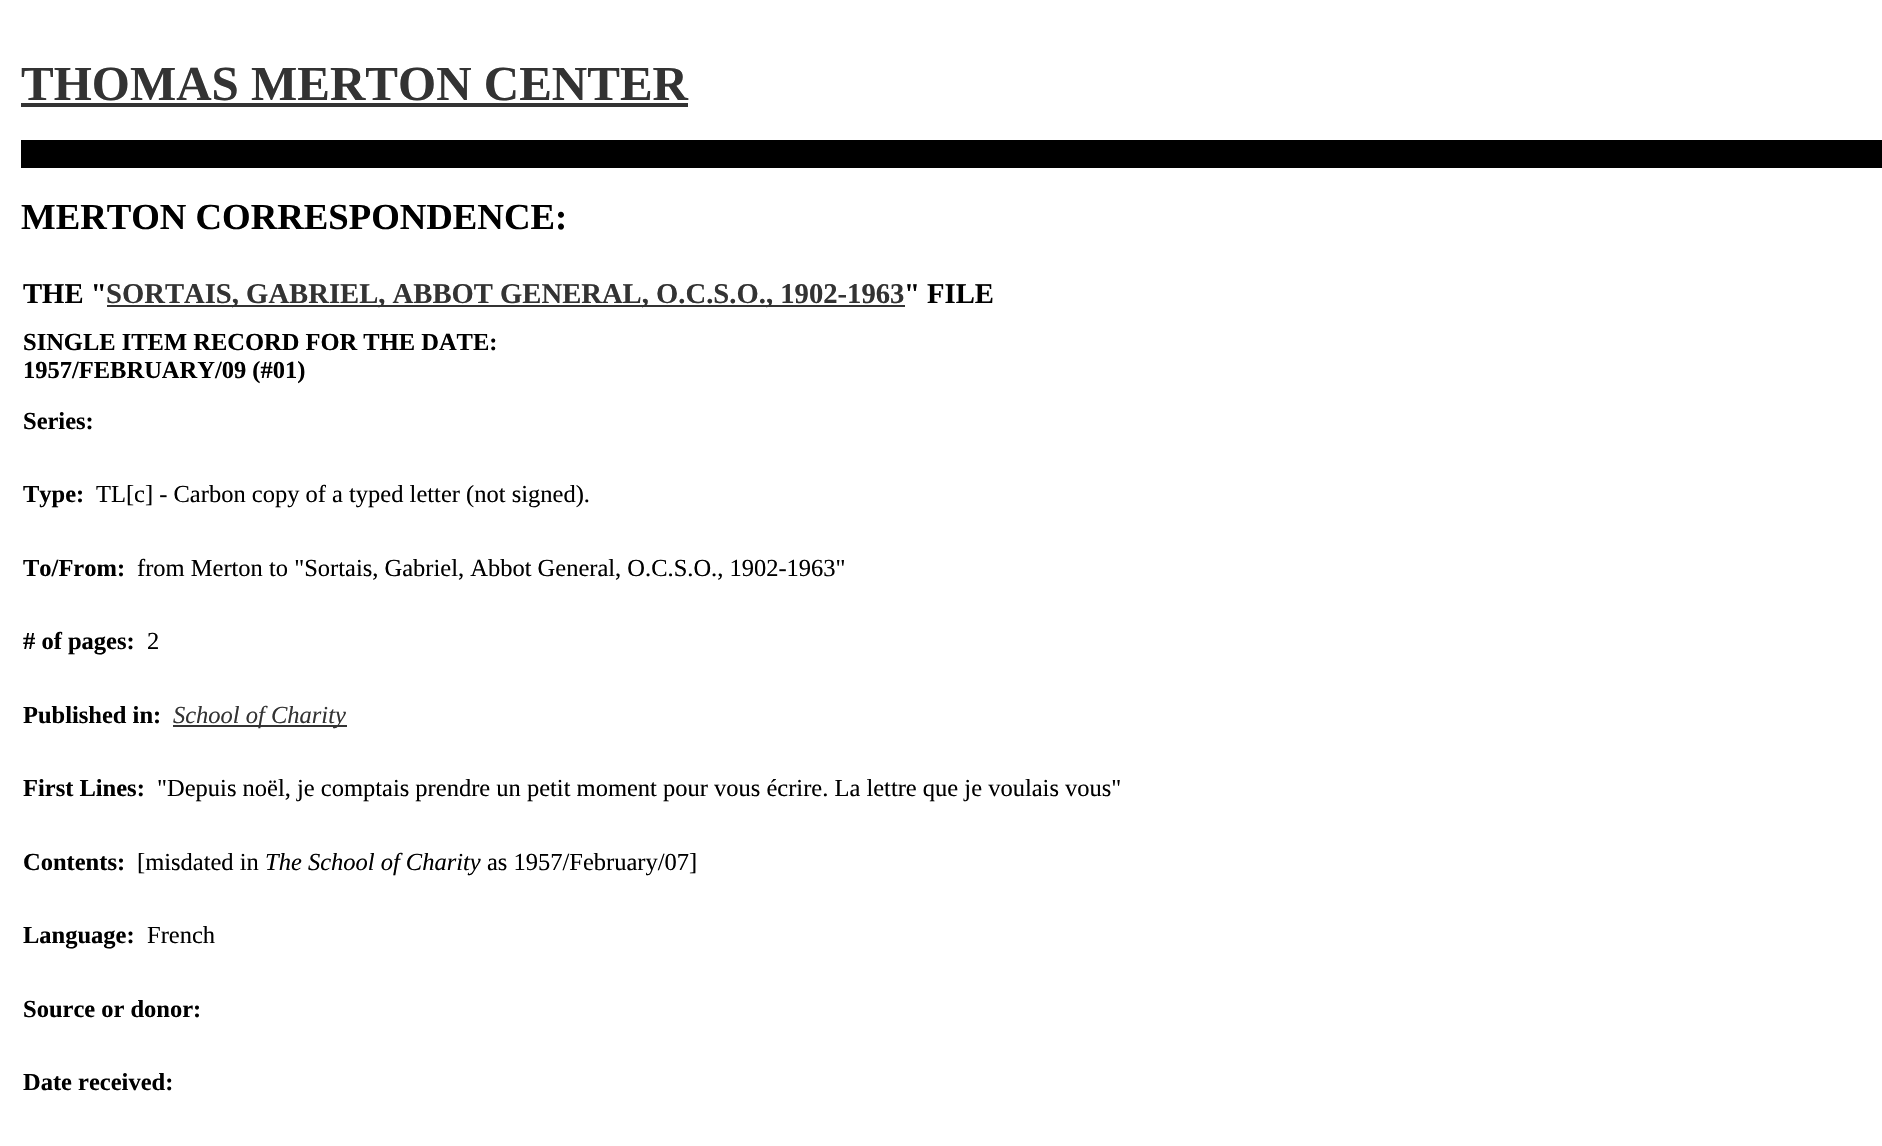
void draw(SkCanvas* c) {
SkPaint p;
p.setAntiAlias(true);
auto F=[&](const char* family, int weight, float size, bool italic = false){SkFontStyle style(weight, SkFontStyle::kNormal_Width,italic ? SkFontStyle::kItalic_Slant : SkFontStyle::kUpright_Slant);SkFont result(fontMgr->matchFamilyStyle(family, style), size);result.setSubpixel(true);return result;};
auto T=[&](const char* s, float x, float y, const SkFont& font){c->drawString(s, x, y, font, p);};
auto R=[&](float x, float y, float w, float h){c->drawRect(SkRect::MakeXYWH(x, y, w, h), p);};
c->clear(0xffffffff);
auto f1 = F("Liberation Serif",700,49);
p.setColor(0xff333333);
T("THOMAS MERTON CENTER",21,100,f1);
R(21,103,667,4);
p.setColor(0xff000000);
R(21,140,1861,28);
auto f2 = F("Liberation Serif",700,36.75);
T("MERTON CORRESPONDENCE:",21,229,f2);
auto f3 = F("Liberation Serif",700,28.65);
T("THE \"",23,303,f3);
p.setColor(0xff333333);
R(107,305,798,2);
T("SORTAIS, GABRIEL, ABBOT GENERAL, O.C.S.O., 1902-1963",106,303,f3);
p.setColor(0xff000000);
T("\" FILE",904,303,f3);
auto f4 = F("Liberation Serif",700,24.5);
T("SINGLE ITEM RECORD FOR THE DATE:",23,350,f4);
T("1957/FEBRUARY/09 (#01)",23,378,f4);
T("Series:",23,429,f4);
T("Type:",23,502,f4);
auto f5 = F("Liberation Serif",400,24.5);
T("TL[c] - Carbon copy of a typed letter (not signed).",96,502,f5);
T("To/From:",23,576,f4);
T("from Merton to \"Sortais, Gabriel, Abbot General, O.C.S.O., 1902-1963\"",137,576,f5);
T("# of pages:",23,649,f4);
T("2",147,649,f5);
T("Published in:",23,723,f4);
p.setColor(0xff333333);
R(173,725,174,2);
auto f6 = F("Liberation Serif",400,24.5,true);
T("School of Charity",173,723,f6);
p.setColor(0xff000000);
T("First Lines:",23,796,f4);
T("\"Depuis noël, je comptais prendre un petit moment pour vous écrire. La lettre que je voulais vous\"",157,796,f5);
T("Contents:",23,870,f4);
T("[misdated in",137,870,f5);
T("The School of Charity",265,870,f6);
T("as 1957/February/07]",487,870,f5);
T("Language:",23,943,f4);
T("French",147,943,f5);
T("Source or donor:",23,1017,f4);
T("Date received:",23,1090,f4);
}
